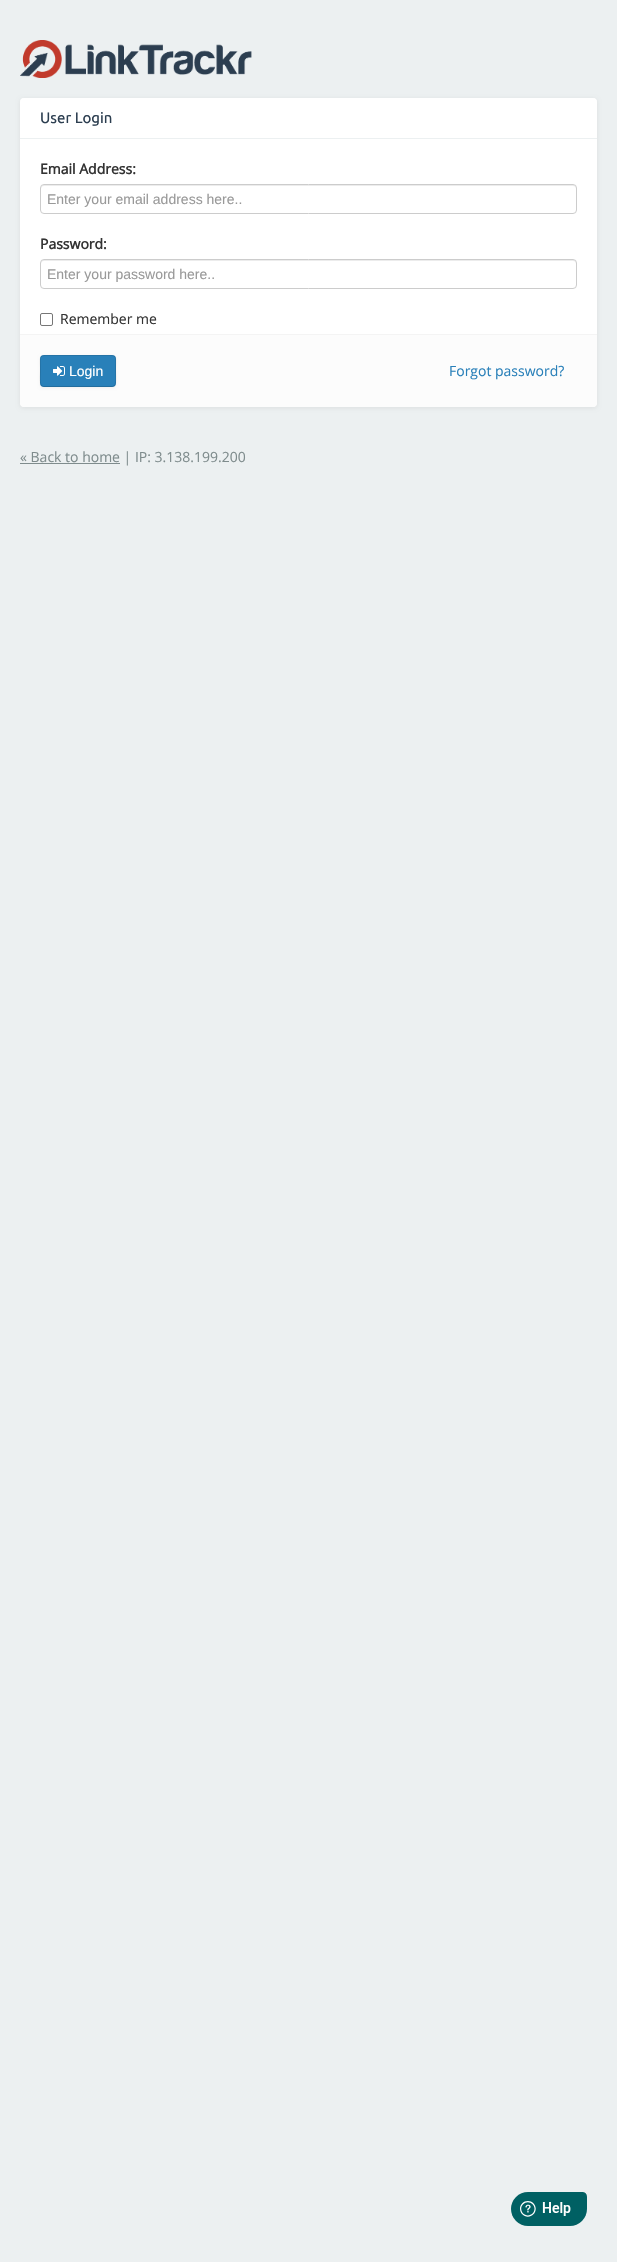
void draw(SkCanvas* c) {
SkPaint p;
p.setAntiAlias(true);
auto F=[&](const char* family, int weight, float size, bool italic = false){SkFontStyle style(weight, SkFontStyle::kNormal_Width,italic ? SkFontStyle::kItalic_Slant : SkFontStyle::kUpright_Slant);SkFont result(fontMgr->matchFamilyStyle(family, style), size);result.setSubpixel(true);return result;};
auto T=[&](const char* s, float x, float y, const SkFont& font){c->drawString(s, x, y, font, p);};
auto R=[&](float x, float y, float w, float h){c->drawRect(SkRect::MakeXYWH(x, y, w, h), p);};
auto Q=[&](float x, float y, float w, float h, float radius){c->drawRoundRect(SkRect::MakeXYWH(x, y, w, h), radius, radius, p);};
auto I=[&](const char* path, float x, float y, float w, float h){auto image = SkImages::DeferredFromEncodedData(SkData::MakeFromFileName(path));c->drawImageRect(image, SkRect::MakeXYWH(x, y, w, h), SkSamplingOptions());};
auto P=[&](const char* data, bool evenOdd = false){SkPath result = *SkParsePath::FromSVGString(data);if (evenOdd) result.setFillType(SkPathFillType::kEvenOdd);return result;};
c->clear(0xffecf0f1);
I("1.png",20,40,232,38);
p.setColor(0x12000000);
p.setMaskFilter(SkMaskFilter::MakeBlur(kNormal_SkBlurStyle, 2));
c->drawRoundRect(SkRect::MakeXYWH(20,99,577,309),4,4,p);
p.setMaskFilter(nullptr);
p.setColor(0xffffffff);
Q(20,98,577,309,4);
c->drawPath(P("M24 98h569c2 0 4 2 4 4v37h-577v-37c0-2 2-4 4-4z"),p);
p.setColor(0xffecf0f1);
R(20,138,577,1);
auto f1 = F("Ubuntu",400,15);
p.setColor(0xff2c3e50);
T("User Login",40,123,f1);
auto f2 = F("Open Sans",700,14);
p.setColor(0xff333333);
T("Email Address:",40,174,f2);
p.setColor(0xffececec);
c->drawPath(P("M44 186h529c2 0 3 1 3 3v-1c0-2-1-3-3-3h-529c-2 0-3 1-3 3v1c0-2 1-3 3-3z"),p);
p.setStroke(true);
p.setStrokeWidth(1);
p.setColor(0xffcccccc);
c->drawRoundRect(SkRect::MakeXYWH(40.5,184.5,536,29),3.5,3.5,p);
auto f3 = F("Liberation Sans",400,14);
p.setStroke(false);
p.setColor(0xff999999);
T("Enter your email address here..",47,204,f3);
p.setColor(0xff333333);
T("Password:",40,249,f2);
p.setColor(0xffececec);
c->drawPath(P("M44 261h529c2 0 3 1 3 3v-1c0-2-1-3-3-3h-529c-2 0-3 1-3 3v1c0-2 1-3 3-3z"),p);
p.setStroke(true);
p.setColor(0xffcccccc);
c->drawRoundRect(SkRect::MakeXYWH(40.5,259.5,536,29),3.5,3.5,p);
p.setStroke(false);
p.setColor(0xff999999);
T("Enter your password here..",47,279,f3);
p.setStroke(true);
p.setColor(0xff767676);
c->drawRoundRect(SkRect::MakeXYWH(40.5,313.5,12,12),1.5,1.5,p);
auto f4 = F("Open Sans",400,14);
p.setStroke(false);
p.setColor(0xff333333);
T("Remember me",60,324,f4);
p.setColor(0xfffcfcfc);
c->drawPath(P("M20 334h577v69c0 2-2 4-4 4h-569c-2 0-4-2-4-4z"),p);
p.setColor(0xfff4f4f4);
R(20,334,577,1);
p.setColor(0x0d000000);
p.setMaskFilter(SkMaskFilter::MakeBlur(kNormal_SkBlurStyle, 1.5));
c->drawRoundRect(SkRect::MakeXYWH(40,356,76,32),4,4,p);
p.setMaskFilter(nullptr);
p.setColor(0xff2980b9);
Q(40,355,76,32,4);
p.setStroke(true);
p.setColor(0x26000000);
c->drawPath(P("M114.5 385.5l-2 1h-69l-2-1"),p);
p.setColor(0x1a000000);
c->drawPath(P("M41.5 385.5c-2-2.5-1-11.5-1-14.5c0-17.5-3-15.5 15-15.5h45c18 0 15-2 15 15.5c0 3 1 12-1 14.5"),p);
I("2.png",53,366,12,10);
p.setStroke(false);
p.setColor(0xffffffff);
T("Login",69,376,f3);
p.setColor(0xff2980b9);
T("Forgot password?",449,376,f4);
p.setColor(0xff7f8c8d);
R(20,463,100,1);
T("« Back to home | IP: 3.138.199.200",20,462,f4);
I("3.png",511,2192,76,34);
}
